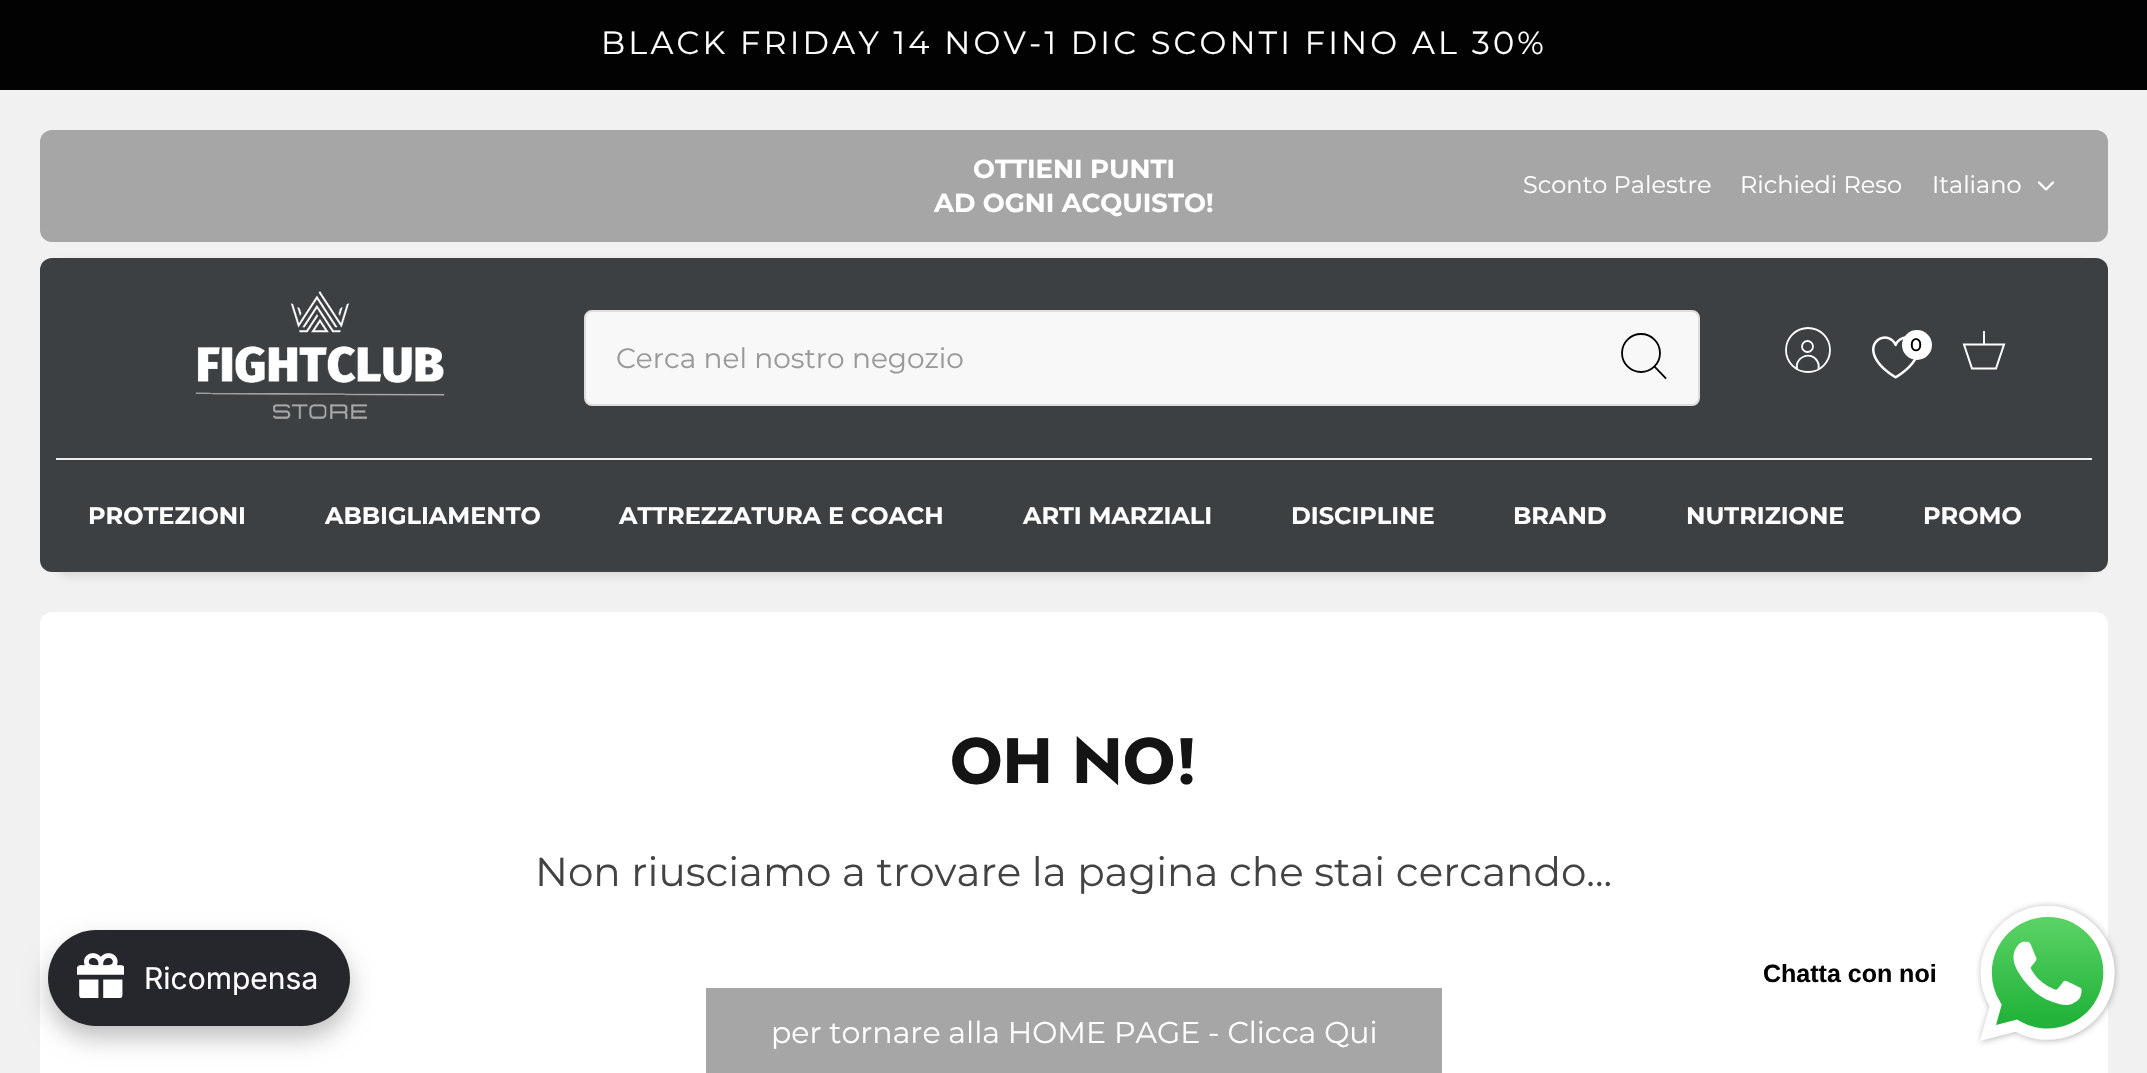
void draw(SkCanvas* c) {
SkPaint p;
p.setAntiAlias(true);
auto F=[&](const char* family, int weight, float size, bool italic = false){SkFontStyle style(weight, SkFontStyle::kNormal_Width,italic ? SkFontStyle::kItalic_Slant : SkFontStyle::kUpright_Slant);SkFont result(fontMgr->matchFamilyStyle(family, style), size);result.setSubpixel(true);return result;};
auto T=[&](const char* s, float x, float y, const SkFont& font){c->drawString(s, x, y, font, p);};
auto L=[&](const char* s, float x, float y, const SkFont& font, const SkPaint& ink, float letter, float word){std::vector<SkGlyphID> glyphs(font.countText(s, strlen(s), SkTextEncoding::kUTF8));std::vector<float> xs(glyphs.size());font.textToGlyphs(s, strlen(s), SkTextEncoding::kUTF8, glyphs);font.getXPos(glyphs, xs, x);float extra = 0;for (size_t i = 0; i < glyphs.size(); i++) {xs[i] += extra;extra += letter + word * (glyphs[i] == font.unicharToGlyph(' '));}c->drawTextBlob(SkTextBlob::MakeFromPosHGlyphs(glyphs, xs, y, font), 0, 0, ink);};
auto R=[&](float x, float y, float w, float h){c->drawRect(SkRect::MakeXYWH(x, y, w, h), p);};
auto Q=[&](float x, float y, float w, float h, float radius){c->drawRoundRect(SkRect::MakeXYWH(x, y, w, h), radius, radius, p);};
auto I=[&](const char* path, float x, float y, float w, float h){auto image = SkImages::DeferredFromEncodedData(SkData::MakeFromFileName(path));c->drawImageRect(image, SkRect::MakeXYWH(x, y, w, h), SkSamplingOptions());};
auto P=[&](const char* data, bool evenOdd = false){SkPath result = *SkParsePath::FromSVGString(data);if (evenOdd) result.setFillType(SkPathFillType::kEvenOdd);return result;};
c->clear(0xfff1f1f1);
p.setColor(0xff020202);
R(0,0,2147,90);
auto f1 = F("Montserrat",400,32);
p.setColor(0xffffffff);
L("BLACK FRIDAY 14 NOV-1 DIC SCONTI FINO AL 30%",601,54,f1,p,3.2,0);
p.setColor(0xffa6a6a6);
Q(40,130,2068,112,12);
auto f2 = F("Montserrat",700,26);
p.setColor(0xffffffff);
T("OTTIENI PUNTI",973,178,f2);
T("AD OGNI ACQUISTO!",934,212,f2);
auto f3 = F("Montserrat",400,24);
T("Sconto Palestre",1523,193,f3);
T("Richiedi Reso",1740,193,f3);
T("Italiano",1932,193,f3);
p.setStroke(true);
p.setStrokeWidth(2.3);
p.setStrokeCap(SkPaint::kRound_Cap);
p.setStrokeJoin(SkPaint::kRound_Join);
c->drawPath(P("M2039 182.5l7 7l7-7"),p);
p.setStroke(false);
p.setColor(0x1a000000);
p.setMaskFilter(SkMaskFilter::MakeBlur(kNormal_SkBlurStyle, 4));
c->drawRoundRect(SkRect::MakeXYWH(56,262,2036,314),12,12,p);
p.setMaskFilter(nullptr);
p.setColor(0xff3c4043);
Q(40,258,2068,314,12);
I("1.png",195,291,250,128);
p.setStroke(true);
p.setStrokeWidth(1.8);
p.setStrokeCap(SkPaint::kButt_Cap);
p.setStrokeJoin(SkPaint::kMiter_Join);
p.setColor(0xffffffff);
c->drawCircle(1807.5,346.5,5.5,p);
c->drawPath(P("M1818.5 369.5c.5-2.5 .5-5.5-1-8c-6-11.5-23.5-4.5-20.5 8"),p);
c->drawCircle(1808,350,22,p);
I("2.png",1872,336,45,43);
p.setStroke(false);
c->drawCircle(1917,345,15,p);
auto f4 = F("Montserrat",500,18);
p.setColor(0xff000000);
T("0",1910,351,f4);
p.setStroke(true);
p.setStrokeWidth(2);
p.setColor(0xffffffff);
c->drawPath(P("M1964 344.5h40l-8 24h-24z"),p);
p.setStroke(false);
R(1983,331,2,14);
p.setColor(0xfff8f8f8);
c->drawRoundRect(SkRect::MakeXYWH(585,311,1114,94),7,7,p);
p.setStroke(true);
p.setColor(0xffdddddd);
c->drawRoundRect(SkRect::MakeXYWH(585,311,1114,94),7,7,p);
auto f5 = F("Montserrat",400,28);
p.setStroke(false);
p.setColor(0xff999999);
T("Cerca nel nostro negozio",616,368,f5);
p.setStroke(true);
p.setStrokeWidth(1.8);
p.setColor(0xff000000);
c->drawCircle(1641,353,19,p);
p.setStrokeCap(SkPaint::kSquare_Cap);
c->drawPath(P("M1655 367l10.5 11"),p);
p.setStroke(false);
p.setColor(0xffeeeeee);
R(56,458,2036,2);
auto f6 = F("Montserrat",700,24);
p.setColor(0xffffffff);
T("PROTEZIONI",88,524,f6);
T("ABBIGLIAMENTO",325,524,f6);
T("ATTREZZATURA E COACH",619,524,f6);
T("ARTI MARZIALI",1023,524,f6);
T("DISCIPLINE",1291,524,f6);
T("BRAND",1513,524,f6);
T("NUTRIZIONE",1686,524,f6);
T("PROMO",1923,524,f6);
Q(40,612,2068,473,12);
p.setColor(0x40000000);
p.setMaskFilter(SkMaskFilter::MakeBlur(kNormal_SkBlurStyle, 12));
c->drawRoundRect(SkRect::MakeXYWH(48,942,302,96),48,48,p);
p.setMaskFilter(nullptr);
p.setColor(0xff25272c);
Q(48,930,302,96,48);
I("3.png",77,953,47,45);
auto f7 = F("Inter",400,30);
p.setColor(0xffffffff);
T("Ricompensa",144,989,f7);
auto f8 = F("Jost",700,64);
p.setColor(0xff141414);
T("OH NO!",950,783,f8);
auto f9 = F("Montserrat",400,40.5);
p.setColor(0xff434343);
T("Non riusciamo a trovare la pagina che stai cercando...",535,886,f9);
p.setColor(0xffa6a6a6);
R(706,988,736,85);
auto f10 = F("Montserrat",400,30);
p.setColor(0xffffffff);
T("per tornare alla HOME PAGE - Clicca Qui",771,1043,f10);
auto f11 = F("Liberation Sans",700,25);
p.setColor(0xff000000);
T("Chatta con noi",1763,982,f11);
I("4.png",1976,901,144,145);
}
